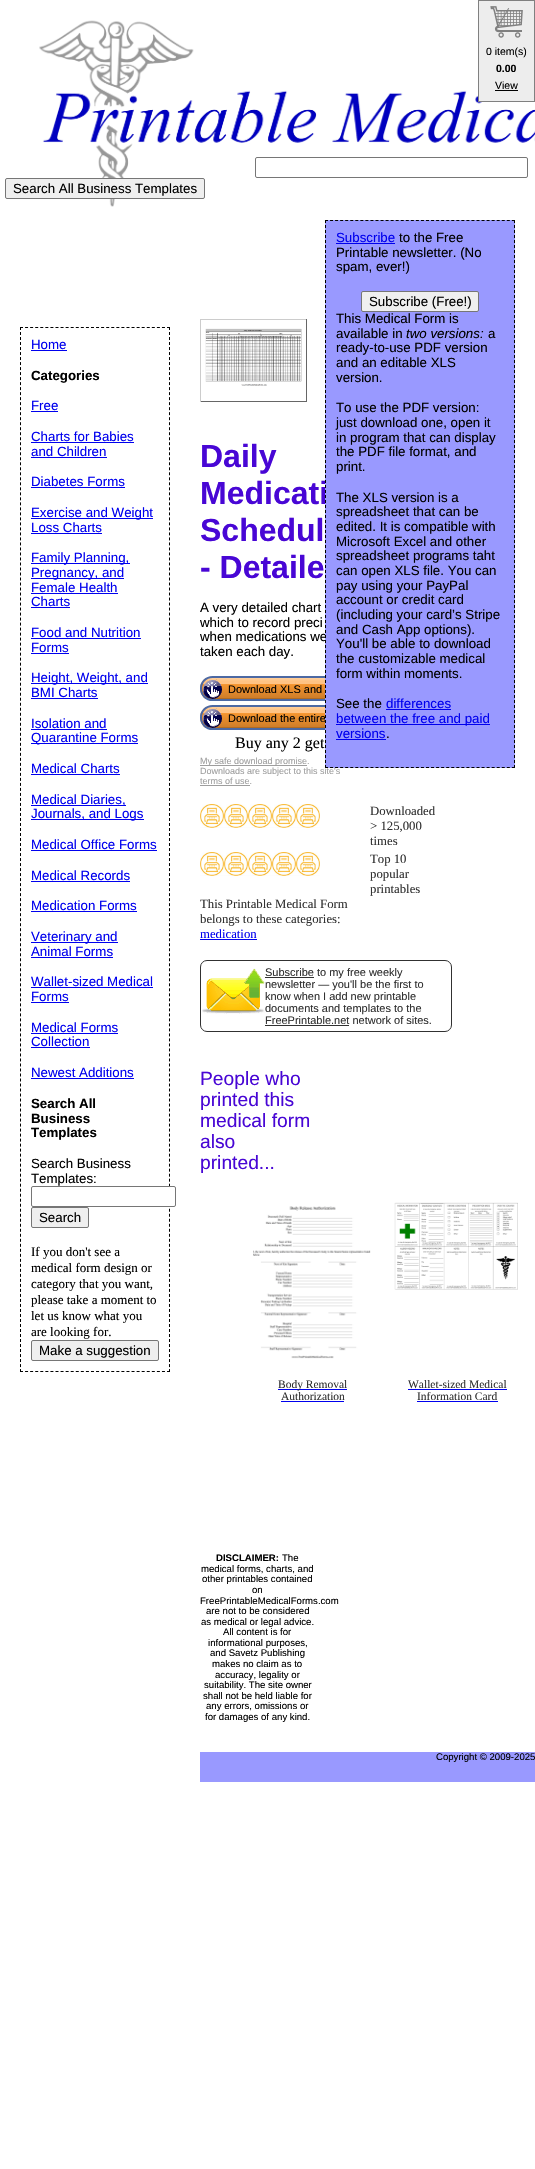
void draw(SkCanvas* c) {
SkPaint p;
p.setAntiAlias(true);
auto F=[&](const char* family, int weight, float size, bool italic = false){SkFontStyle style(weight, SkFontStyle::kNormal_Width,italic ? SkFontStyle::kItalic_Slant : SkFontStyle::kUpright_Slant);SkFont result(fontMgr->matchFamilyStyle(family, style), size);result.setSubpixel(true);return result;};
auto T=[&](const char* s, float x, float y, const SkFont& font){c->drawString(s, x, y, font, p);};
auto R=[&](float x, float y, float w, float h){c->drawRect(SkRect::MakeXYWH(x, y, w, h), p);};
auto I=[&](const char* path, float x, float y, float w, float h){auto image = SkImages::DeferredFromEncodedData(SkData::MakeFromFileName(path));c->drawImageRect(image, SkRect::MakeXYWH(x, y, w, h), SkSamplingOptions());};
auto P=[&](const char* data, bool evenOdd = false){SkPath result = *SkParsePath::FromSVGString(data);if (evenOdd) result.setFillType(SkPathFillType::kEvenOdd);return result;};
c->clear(0xffffffff);
I("2.png",39,20,496,187);
p.setColor(0xffededed);
c->drawRect(SkRect::MakeXYWH(478.5,.5,56,101),p);
p.setStroke(true);
p.setStrokeWidth(1);
p.setColor(0xff808080);
c->drawRect(SkRect::MakeXYWH(478.5,.5,56,101),p);
I("1.png",490,6,33,32);
auto f1 = F("Liberation Sans",400,10.5);
p.setStroke(false);
p.setColor(0xff000000);
T("0 item(s)",486,55,f1);
auto f2 = F("Liberation Sans",700,10.5);
T("0.00",496,72,f2);
T("View",495,89,f1);
R(495,90,23,1);
p.setStroke(true);
p.setColor(0xff767676);
c->drawRoundRect(SkRect::MakeXYWH(255.5,157.5,272,20),1.5,1.5,p);
p.setStroke(false);
p.setColor(0xffefefef);
c->drawRoundRect(SkRect::MakeXYWH(5.5,178.5,199,20),1.5,1.5,p);
p.setStroke(true);
p.setColor(0xff767676);
c->drawRoundRect(SkRect::MakeXYWH(5.5,178.5,199,20),1.5,1.5,p);
auto f3 = F("Liberation Sans",400,13.3);
p.setStroke(false);
p.setColor(0xff000000);
T("Search All Business Templates",13,193,f3);
p.setStroke(true);
p.setPathEffect(SkDashPathEffect::Make({{3,2.07f}}, 0));
c->drawPath(P("M20 327.5h150"),p);
p.setPathEffect(nullptr);
p.setPathEffect(SkDashPathEffect::Make({{3,2.01f}}, 0));
c->drawPath(P("M169.5 327v1045"),p);
p.setPathEffect(nullptr);
p.setPathEffect(SkDashPathEffect::Make({{3,2.07f}}, 0));
c->drawPath(P("M20 1371.5h150"),p);
p.setPathEffect(nullptr);
p.setPathEffect(SkDashPathEffect::Make({{3,2.01f}}, 0));
c->drawPath(P("M20.5 327v1045"),p);
p.setPathEffect(nullptr);
p.setStroke(false);
p.setColor(0xff0000ee);
T("Home",31,349,f3);
R(31,350,36,1);
auto f4 = F("Liberation Sans",700,13.3);
p.setColor(0xff000000);
T("Categories",31,380,f4);
p.setColor(0xff0000ee);
T("Free",31,410,f3);
R(31,411,27,1);
T("Charts for Babies",31,441,f3);
R(31,442,103,1);
T("and Children",31,456,f3);
R(31,457,76,1);
T("Diabetes Forms",31,486,f3);
R(31,487,94,1);
R(31,518,122,1);
T("Exercise and Weight",31,517,f3);
T("Loss Charts",31,532,f3);
R(31,533,71,1);
R(31,563,99,1);
T("Family Planning,",31,562,f3);
R(31,578,93,1);
T("Pregnancy, and",31,577,f3);
T("Female Health",31,592,f3);
R(31,593,87,1);
T("Charts",31,606,f3);
R(31,607,39,1);
T("Food and Nutrition",31,637,f3);
R(31,638,110,1);
T("Forms",31,652,f3);
R(31,653,38,1);
R(31,683,117,1);
T("Height, Weight, and",31,682,f3);
T("BMI Charts",31,697,f3);
R(31,698,67,1);
T("Isolation and",31,728,f3);
R(31,729,76,1);
R(31,743,107,1);
T("Quarantine Forms",31,742,f3);
T("Medical Charts",31,773,f3);
R(31,774,89,1);
R(31,805,95,1);
T("Medical Diaries,",31,804,f3);
R(31,819,113,1);
T("Journals, and Logs",31,818,f3);
T("Medical Office Forms",31,849,f3);
R(31,850,126,1);
T("Medical Records",31,880,f3);
R(31,881,99,1);
T("Medication Forms",31,910,f3);
R(31,911,106,1);
R(31,942,87,1);
T("Veterinary and",31,941,f3);
T("Animal Forms",31,956,f3);
R(31,957,82,1);
T("Wallet-sized Medical",31,986,f3);
R(31,987,122,1);
T("Forms",31,1001,f3);
R(31,1002,38,1);
T("Medical Forms",31,1032,f3);
R(31,1033,87,1);
T("Collection",31,1046,f3);
R(31,1047,59,1);
T("Newest Additions",31,1077,f3);
R(31,1078,103,1);
p.setColor(0xff000000);
T("Search All",31,1108,f4);
T("Business",31,1123,f4);
T("Templates",31,1137,f4);
T("Search Business",31,1168,f3);
T("Templates:",31,1183,f3);
p.setColor(0xffffffff);
c->drawRoundRect(SkRect::MakeXYWH(31.5,1186.5,144,20),1.5,1.5,p);
p.setStroke(true);
p.setColor(0xff767676);
c->drawRoundRect(SkRect::MakeXYWH(31.5,1186.5,144,20),1.5,1.5,p);
p.setStroke(false);
p.setColor(0xffefefef);
c->drawRoundRect(SkRect::MakeXYWH(31.5,1207.5,57,20),1.5,1.5,p);
p.setStroke(true);
p.setColor(0xff767676);
c->drawRoundRect(SkRect::MakeXYWH(31.5,1207.5,57,20),1.5,1.5,p);
p.setStroke(false);
p.setColor(0xff000000);
T("Search",39,1222,f3);
auto f5 = F("Liberation Serif",400,13);
T("If you don't see a",31,1256,f5);
T("medical form design or",31,1272,f5);
T("category that you want,",31,1288,f5);
T("please take a moment to",31,1304,f5);
T("let us know what you",31,1320,f5);
T("are looking for.",31,1336,f5);
p.setColor(0xffefefef);
c->drawRoundRect(SkRect::MakeXYWH(31.5,1340.5,127,20),1.5,1.5,p);
p.setStroke(true);
p.setColor(0xff767676);
c->drawRoundRect(SkRect::MakeXYWH(31.5,1340.5,127,20),1.5,1.5,p);
p.setStroke(false);
p.setColor(0xff000000);
T("Make a suggestion",39,1355,f3);
auto f6 = F("Liberation Sans",700,32);
p.setColor(0xff4806d5);
T("Medicati",200,504,f6);
p.setColor(0xff000000);
T("when medications we",200,641,f3);
c->save();
c->clipPath(P("M212.5 676h201.5c3.5 0 6 2.5 6 6v13c0 3.5-2.5 6-6 6h-201.5c-7 0-12.5-5.5-12.5-12.5c0-7 5.5-12.5 12.5-12.5z"),true);
{
const SkColor colors[] = {0xffffd09e,0xffffc384,0xffffc384,0xfff49530,0xffd07e29,0xffbf7425,0xffa46420};
const float stops[] = {0,.15,.3,.31,.94,.95,1};
const SkPoint ends[] = {{310,678}, {310,699}};
p.setShader(SkGradientShader::MakeLinear(ends, colors, stops, 7, SkTileMode::kClamp));
p.setAlpha(255);
}
R(200,678,125,21);
c->restore();
p.setStroke(true);
p.setStrokeWidth(2);
p.setShader(nullptr);
p.setColor(0xff4c69a4);
c->drawPath(P("M212.5 677h201.5c3 0 5 2 5 5v13c0 3-2 5-5 5h-201.5c-6.5 0-11.5-5-11.5-11.5c0-6.5 5-11.5 11.5-11.5z"),p);
c->save();
c->clipPath(P("M212.5 705h201.5c3.5 0 6 2.5 6 6v13c0 3.5-2.5 6-6 6h-201.5c-7 0-12.5-5.5-12.5-12.5c0-7 5.5-12.5 12.5-12.5z"),true);
p.setStroke(false);
{
const SkColor colors[] = {0xffffd09e,0xffffc384,0xffffc384,0xfff49530,0xffd07e29,0xffbf7425,0xffa46420};
const float stops[] = {0,.15,.3,.31,.94,.95,1};
const SkPoint ends[] = {{310,707}, {310,728}};
p.setShader(SkGradientShader::MakeLinear(ends, colors, stops, 7, SkTileMode::kClamp));
p.setAlpha(255);
}
R(200,707,125,21);
c->restore();
p.setStroke(true);
p.setShader(nullptr);
p.setColor(0xff4c69a4);
c->drawPath(P("M212.5 706h201.5c3 0 5 2 5 5v13c0 3-2 5-5 5h-201.5c-6.5 0-11.5-5-11.5-11.5c0-6.5 5-11.5 11.5-11.5z"),p);
auto f7 = F("Liberation Sans",400,11);
p.setStroke(false);
p.setColor(0xff000000);
T("Download the entire",228,722,f7);
auto f8 = F("Liberation Sans",400,9);
p.setColor(0xff9e9e9e);
T("Downloads are subject to this site's",200,774,f8);
p.setColor(0xff9999ff);
R(325,220,190,548);
p.setStroke(true);
p.setStrokeWidth(1);
p.setColor(0xff000000);
p.setPathEffect(SkDashPathEffect::Make({{3,2.05f}}, 0));
c->drawPath(P("M325 220.5h190"),p);
p.setPathEffect(nullptr);
p.setPathEffect(SkDashPathEffect::Make({{3,2}}, 0));
c->drawPath(P("M514.5 220v548"),p);
p.setPathEffect(nullptr);
p.setPathEffect(SkDashPathEffect::Make({{3,2.05f}}, 0));
c->drawPath(P("M325 767.5h190"),p);
p.setPathEffect(nullptr);
p.setPathEffect(SkDashPathEffect::Make({{3,2}}, 0));
c->drawPath(P("M325.5 220v548"),p);
p.setPathEffect(nullptr);
p.setStroke(false);
p.setColor(0xff0000ee);
T("Subscribe",336,242,f3);
R(336,243,59,1);
p.setColor(0xff000000);
T("to the Free",399,242,f3);
T("Printable newsletter. (No",336,257,f3);
T("spam, ever!)",336,271,f3);
p.setColor(0xffefefef);
c->drawRoundRect(SkRect::MakeXYWH(361.5,291.5,117,20),1.5,1.5,p);
p.setStroke(true);
p.setColor(0xff767676);
c->drawRoundRect(SkRect::MakeXYWH(361.5,291.5,117,20),1.5,1.5,p);
p.setStroke(false);
p.setColor(0xff000000);
T("Subscribe (Free!)",369,306,f3);
T("This Medical Form is",336,323,f3);
T("available in",336,338,f3);
auto f9 = F("Liberation Sans",400,13.3,true);
T("two versions:",406,338,f9);
T("a",488,338,f3);
T("ready-to-use PDF version",336,352,f3);
T("and an editable XLS",336,367,f3);
T("version.",336,382,f3);
T("To use the PDF version:",336,412,f3);
T("just download one, open it",336,427,f3);
T("in program that can display",336,442,f3);
T("the PDF file format, and",336,456,f3);
T("print.",336,471,f3);
T("The XLS version is a",336,502,f3);
T("spreadsheet that can be",336,516,f3);
T("edited. It is compatible with",336,531,f3);
T("Microsoft Excel and other",336,546,f3);
T("spreadsheet programs taht",336,560,f3);
T("can open XLS file. You can",336,575,f3);
T("pay using your PayPal",336,590,f3);
T("account or credit card",336,604,f3);
T("(including your card’s Stripe",336,619,f3);
T("and Cash App options).",336,634,f3);
T("You'll be able to download",336,648,f3);
T("the customizable medical",336,663,f3);
T("form within moments.",336,678,f3);
T("See the",336,708,f3);
p.setColor(0xff0000ee);
T("differences",386,708,f3);
R(386,709,65,1);
R(336,724,154,1);
T("between the free and paid",336,723,f3);
T("versions",336,738,f3);
R(336,739,50,1);
p.setColor(0xff000000);
T(".",386,738,f3);
p.setColor(0xffcccccc);
R(200,319,107,1);
p.setColor(0xff666666);
R(306,319,1,83);
R(200,401,107,1);
p.setColor(0xffcccccc);
R(200,319,1,83);
I("3.png",205,328,97,58);
p.setColor(0xff4806d5);
T("Daily",200,467,f6);
T("Schedul",200,541,f6);
T("- Detaile",200,578,f6);
p.setColor(0xff000000);
T("A very detailed chart",200,612,f3);
T("which to record preci",200,627,f3);
T("taken each day.",200,656,f3);
I("4.png",203,679,19,20);
T("Download XLS and",228,693,f7);
I("4.png",203,708,19,20);
auto f10 = F("Liberation Serif",400,16);
T("Buy any 2 get",235,748,f10);
p.setColor(0xff9e9e9e);
R(200,765,107,1);
T("My safe download promise.",200,764,f8);
T("terms of use.",200,784,f8);
R(200,785,50,1);
I("5.png",200,804,24,24);
I("5.png",224,804,24,24);
I("5.png",248,804,24,24);
I("5.png",272,804,24,24);
I("5.png",296,804,24,24);
auto f11 = F("Liberation Serif",400,12.75);
p.setColor(0xff313131);
T("Downloaded",370,815,f11);
T("> 125,000",370,830,f11);
T("times",370,845,f11);
I("5.png",200,852,24,24);
I("5.png",224,852,24,24);
I("5.png",248,852,24,24);
I("5.png",272,852,24,24);
I("5.png",296,852,24,24);
T("Top 10",370,863,f11);
T("popular",370,878,f11);
T("printables",370,893,f11);
T("This Printable Medical Form",200,908,f11);
T("belongs to these categories:",200,923,f11);
p.setColor(0xff0000ee);
T("medication",200,938,f11);
R(200,939,57,1);
p.setStroke(true);
p.setColor(0xff313131);
c->drawRoundRect(SkRect::MakeXYWH(200.5,960.5,251,71),6.5,6.5,p);
I("6.png",202,968,63,46);
p.setStroke(false);
R(265,977,49,1);
T("Subscribe to my free weekly",265,976,f7);
T("newsletter — you'll be the first to",265,988,f7);
T("know when I add new printable",265,1000,f7);
T("documents and templates to the",265,1012,f7);
T("FreePrintable.net network of sites.",265,1024,f7);
R(265,1025,84,1);
auto f12 = F("Liberation Sans",400,19.25);
p.setColor(0xff4806d5);
T("People who",200,1085,f12);
T("printed this",200,1106,f12);
T("medical form",200,1127,f12);
T("also",200,1148,f12);
T("printed...",200,1169,f12);
I("7.png",253,1206,118,153);
p.setColor(0xff0000ee);
R(278,1389,69,1);
auto f13 = F("Liberation Serif",400,11.5);
p.setColor(0xff313131);
T("Body Removal",278,1388,f13);
T("Authorization",281,1400,f13);
p.setColor(0xff0000ee);
R(281,1401,63,1);
I("8.png",394,1202,124,88);
p.setColor(0xff313131);
T("Wallet-sized Medical",408,1388,f13);
p.setColor(0xff0000ee);
R(408,1389,99,1);
p.setColor(0xff313131);
T("Information Card",417,1400,f13);
p.setColor(0xff0000ee);
R(417,1401,81,1);
auto f14 = F("Liberation Sans",700,9.6);
p.setColor(0xff000000);
T("DISCLAIMER:",216,1561,f14);
auto f15 = F("Liberation Sans",400,9.6);
T("The",282,1561,f15);
T("medical forms, charts, and",201,1572,f15);
T("other printables contained",202,1582,f15);
T("on",252,1593,f15);
T("FreePrintableMedicalForms.com",200,1604,f15);
T("are not to be considered",206,1614,f15);
T("as medical or legal advice.",201,1625,f15);
T("All content is for",223,1635,f15);
T("informational purposes,",208,1646,f15);
T("and Savetz Publishing",210,1656,f15);
T("makes no claim as to",212,1667,f15);
T("accuracy, legality or",215,1678,f15);
T("suitability. The site owner",204,1688,f15);
T("shall not be held liable for",203,1699,f15);
T("any errors, omissions or",206,1709,f15);
T("for damages of any kind.",205,1720,f15);
p.setColor(0xff9999ff);
R(200,1752,335,30);
p.setColor(0xff000000);
T("Copyright © 2009-2025",436,1760,f15);
}
